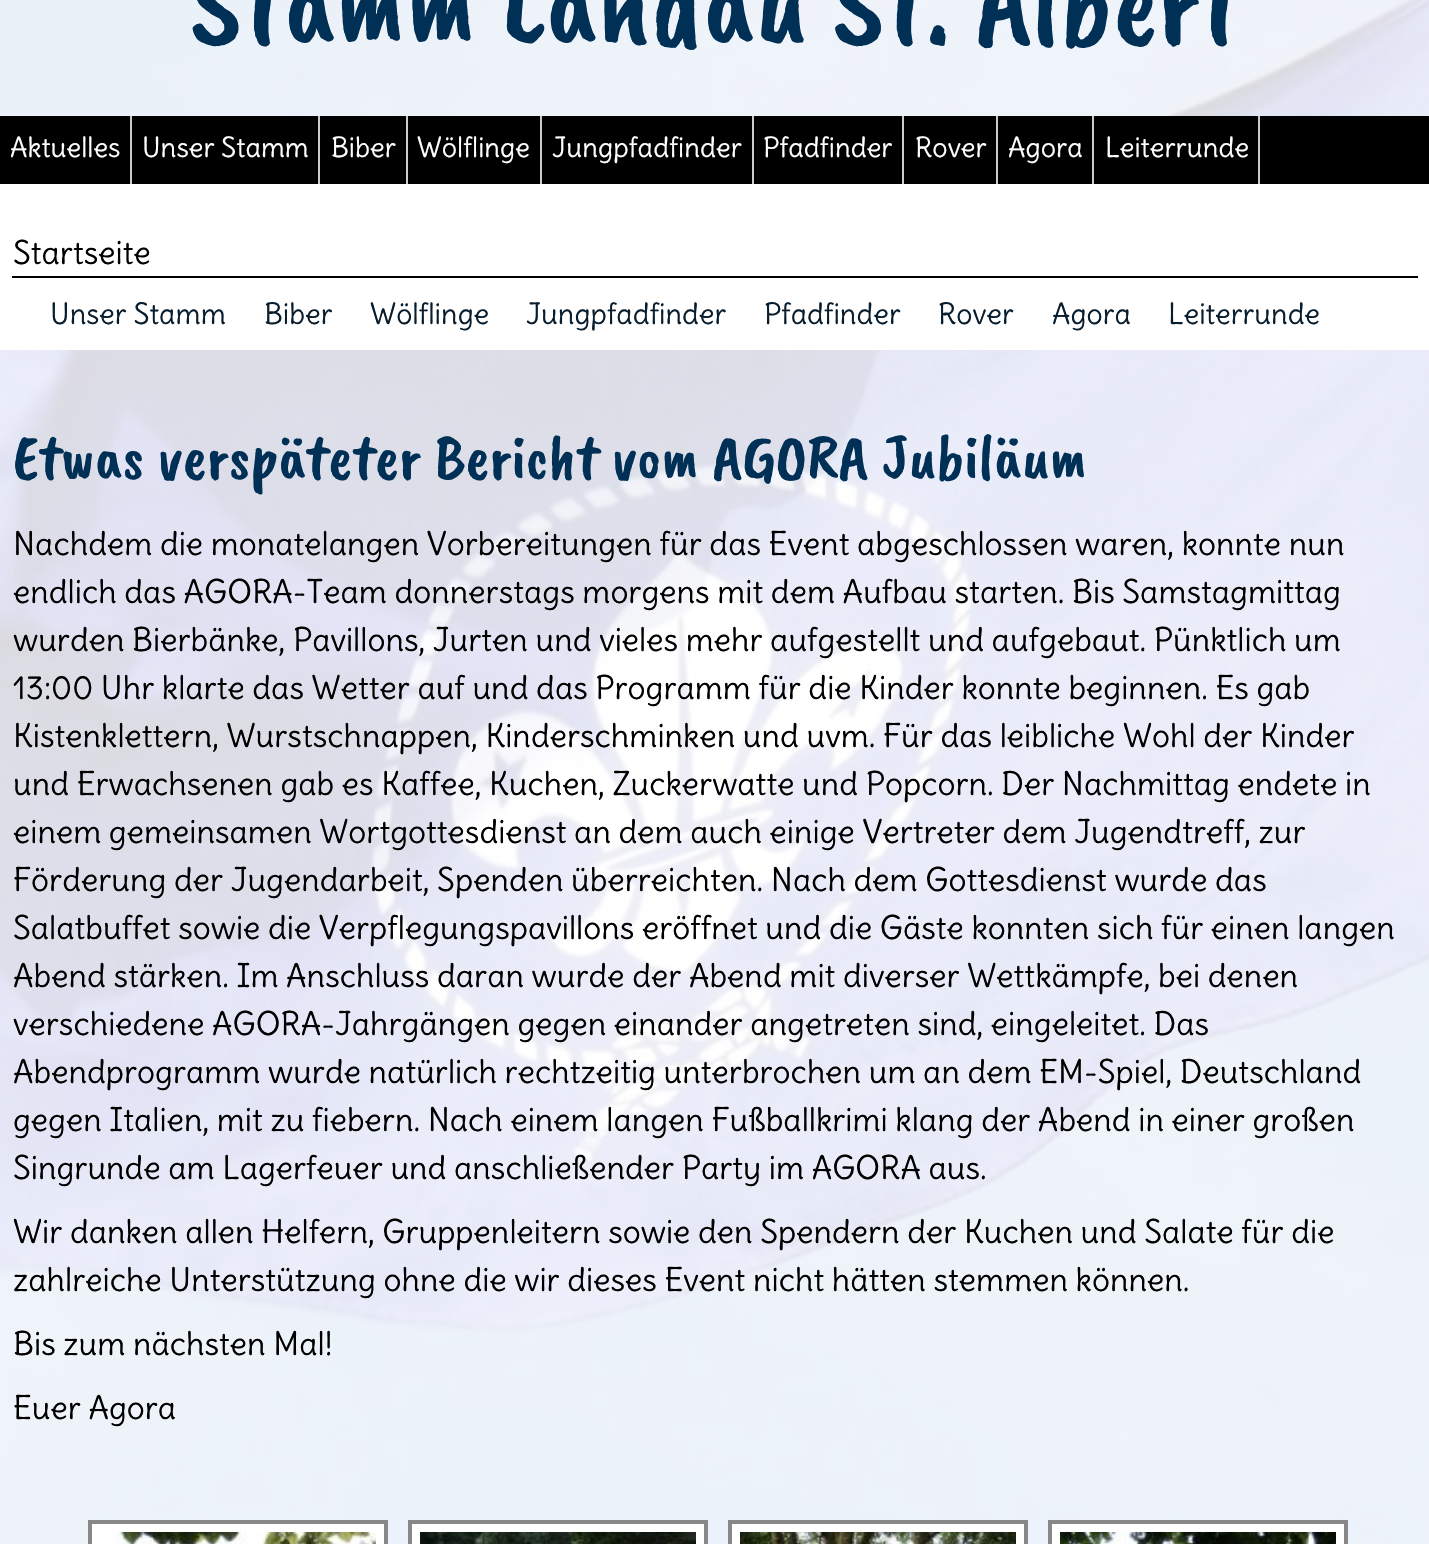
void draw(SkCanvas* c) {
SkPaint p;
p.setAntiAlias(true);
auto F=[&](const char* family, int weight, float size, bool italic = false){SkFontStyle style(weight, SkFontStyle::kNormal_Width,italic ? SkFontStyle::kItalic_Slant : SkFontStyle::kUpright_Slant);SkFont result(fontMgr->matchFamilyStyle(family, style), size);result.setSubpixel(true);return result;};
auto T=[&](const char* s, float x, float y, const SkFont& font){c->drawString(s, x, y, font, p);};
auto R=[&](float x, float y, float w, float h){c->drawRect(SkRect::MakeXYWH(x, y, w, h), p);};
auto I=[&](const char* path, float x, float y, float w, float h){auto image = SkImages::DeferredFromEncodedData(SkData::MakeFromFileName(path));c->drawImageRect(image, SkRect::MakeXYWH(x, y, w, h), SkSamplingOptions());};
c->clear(0xffffffff);
I("1.png",0,0,1429,1544);
p.setColor(0xd9ffffff);
R(0,0,1429,116);
auto f1 = F("Caveat Brush",400,120);
p.setColor(0xff003056);
T("Stamm Landau St. Albert",190,42,f1);
p.setColor(0xff000000);
R(0,116,1429,68);
p.setColor(0xffcccccc);
R(130,116,2,68);
auto f2 = F("Delius",400,27.25);
p.setColor(0xffffffff);
T("Aktuelles",10,157,f2);
p.setColor(0xffcccccc);
R(318,116,2,68);
p.setColor(0xffffffff);
T("Unser Stamm",142,157,f2);
p.setColor(0xffcccccc);
R(406,116,2,68);
p.setColor(0xffffffff);
T("Biber",331,157,f2);
p.setColor(0xffcccccc);
R(540,116,2,68);
p.setColor(0xffffffff);
T("Wölflinge",417,157,f2);
p.setColor(0xffcccccc);
R(752,116,2,68);
p.setColor(0xffffffff);
T("Jungpfadfinder",552,157,f2);
p.setColor(0xffcccccc);
R(902,116,2,68);
p.setColor(0xffffffff);
T("Pfadfinder",763,157,f2);
p.setColor(0xffcccccc);
R(996,116,2,68);
p.setColor(0xffffffff);
T("Rover",915,157,f2);
p.setColor(0xffcccccc);
R(1092,116,2,68);
p.setColor(0xffffffff);
T("Agora",1008,157,f2);
p.setColor(0xffcccccc);
R(1258,116,2,68);
p.setColor(0xffffffff);
T("Leiterrunde",1105,157,f2);
R(0,184,1429,166);
p.setColor(0xff000000);
R(12,276,1406,2);
auto f3 = F("Delius",400,32);
T("Startseite",13,264,f3);
auto f4 = F("Delius",400,28.75);
p.setColor(0xff081d2e);
T("Unser Stamm",50,324,f4);
T("Biber",264,324,f4);
T("Wölflinge",370,324,f4);
T("Jungpfadfinder",526,324,f4);
T("Pfadfinder",764,324,f4);
T("Rover",938,324,f4);
T("Agora",1052,324,f4);
T("Leiterrunde",1168,324,f4);
p.setColor(0xd9ffffff);
R(0,350,1429,1194);
auto f5 = F("Caveat Brush",400,64);
p.setColor(0xff003056);
T("Etwas verspäteter Bericht vom AGORA Jubiläum",13,478,f5);
p.setColor(0xff000000);
T("Nachdem die monatelangen Vorbereitungen für das Event abgeschlossen waren, konnte nun",13,555,f3);
T("endlich das AGORA-Team donnerstags morgens mit dem Aufbau starten. Bis Samstagmittag",13,603,f3);
T("wurden Bierbänke, Pavillons, Jurten und vieles mehr aufgestellt und aufgebaut. Pünktlich um",13,651,f3);
T("13:00 Uhr klarte das Wetter auf und das Programm für die Kinder konnte beginnen. Es gab",13,699,f3);
T("Kistenklettern, Wurstschnappen, Kinderschminken und uvm. Für das leibliche Wohl der Kinder",13,747,f3);
T("und Erwachsenen gab es Kaffee, Kuchen, Zuckerwatte und Popcorn. Der Nachmittag endete in",13,795,f3);
T("einem gemeinsamen Wortgottesdienst an dem auch einige Vertreter dem Jugendtreff, zur",13,843,f3);
T("Förderung der Jugendarbeit, Spenden überreichten. Nach dem Gottesdienst wurde das",13,891,f3);
T("Salatbuffet sowie die Verpflegungspavillons eröffnet und die Gäste konnten sich für einen langen",13,939,f3);
T("Abend stärken. Im Anschluss daran wurde der Abend mit diverser Wettkämpfe, bei denen",13,987,f3);
T("verschiedene AGORA-Jahrgängen gegen einander angetreten sind, eingeleitet. Das",13,1035,f3);
T("Abendprogramm wurde natürlich rechtzeitig unterbrochen um an dem EM-Spiel, Deutschland",13,1083,f3);
T("gegen Italien, mit zu fiebern. Nach einem langen Fußballkrimi klang der Abend in einer großen",13,1131,f3);
T("Singrunde am Lagerfeuer und anschließender Party im AGORA aus.",13,1179,f3);
T("Wir danken allen Helfern, Gruppenleitern sowie den Spendern der Kuchen und Salate für die",13,1243,f3);
T("zahlreiche Unterstützung ohne die wir dieses Event nicht hätten stemmen können.",13,1291,f3);
T("Bis zum nächsten Mal!",13,1355,f3);
T("Euer Agora",13,1419,f3);
p.setColor(0xffffffff);
c->drawRect(SkRect::MakeXYWH(90,1522,296,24),p);
p.setStroke(true);
p.setStrokeWidth(4);
p.setColor(0xff888888);
c->drawRect(SkRect::MakeXYWH(90,1522,296,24),p);
I("2.png",105,1532,271,12);
p.setStroke(false);
p.setColor(0xffffffff);
c->drawRect(SkRect::MakeXYWH(410,1522,296,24),p);
p.setStroke(true);
p.setColor(0xff888888);
c->drawRect(SkRect::MakeXYWH(410,1522,296,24),p);
I("3.png",420,1532,276,12);
p.setStroke(false);
p.setColor(0xffffffff);
c->drawRect(SkRect::MakeXYWH(730,1522,296,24),p);
p.setStroke(true);
p.setColor(0xff888888);
c->drawRect(SkRect::MakeXYWH(730,1522,296,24),p);
I("4.png",740,1532,276,12);
p.setStroke(false);
p.setColor(0xffffffff);
c->drawRect(SkRect::MakeXYWH(1050,1522,296,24),p);
p.setStroke(true);
p.setColor(0xff888888);
c->drawRect(SkRect::MakeXYWH(1050,1522,296,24),p);
I("5.png",1060,1532,276,12);
}
